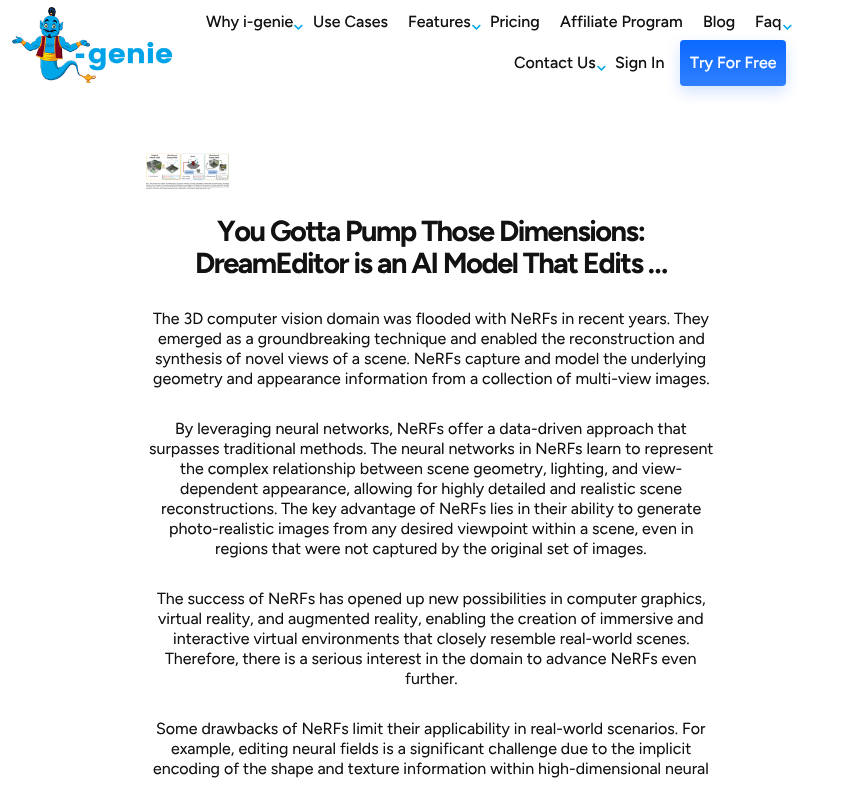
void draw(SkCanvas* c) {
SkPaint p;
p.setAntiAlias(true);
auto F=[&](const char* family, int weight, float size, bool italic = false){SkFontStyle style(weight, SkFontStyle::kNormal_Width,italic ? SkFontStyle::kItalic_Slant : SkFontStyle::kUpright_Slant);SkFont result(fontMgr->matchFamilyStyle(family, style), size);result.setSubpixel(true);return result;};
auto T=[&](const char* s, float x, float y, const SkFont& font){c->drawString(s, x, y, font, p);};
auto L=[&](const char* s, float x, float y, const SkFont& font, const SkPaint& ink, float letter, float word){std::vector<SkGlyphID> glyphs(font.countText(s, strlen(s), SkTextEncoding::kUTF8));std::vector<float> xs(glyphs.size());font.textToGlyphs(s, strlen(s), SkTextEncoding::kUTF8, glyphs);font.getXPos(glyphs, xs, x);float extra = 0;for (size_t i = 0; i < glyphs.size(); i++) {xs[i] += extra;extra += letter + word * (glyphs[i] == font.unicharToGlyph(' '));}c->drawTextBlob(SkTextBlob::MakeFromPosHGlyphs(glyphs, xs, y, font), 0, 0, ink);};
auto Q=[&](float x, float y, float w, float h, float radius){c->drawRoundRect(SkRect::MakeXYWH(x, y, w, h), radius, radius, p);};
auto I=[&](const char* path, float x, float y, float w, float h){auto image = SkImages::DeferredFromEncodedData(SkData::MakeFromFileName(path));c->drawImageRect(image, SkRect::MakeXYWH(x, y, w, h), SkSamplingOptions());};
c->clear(0xffffffff);
I("1.png",12,7,160,76);
auto f1 = F("Figtree",500,16);
p.setColor(0xff131212);
T("Why i-genie",206,27,f1);
I("2.png",294,24,9,6);
T("Use Cases",313,27,f1);
T("Features",408,27,f1);
I("2.png",472,24,9,6);
T("Pricing",490,27,f1);
T("Affiliate Program",560,27,f1);
T("Blog",703,27,f1);
T("Faq",755,27,f1);
I("2.png",783,24,9,6);
T("Contact Us",514,68,f1);
I("2.png",597,65,9,6);
T("Sign In",615,68,f1);
p.setColor(0x331f75ff);
p.setMaskFilter(SkMaskFilter::MakeBlur(kNormal_SkBlurStyle, 7.5));
c->drawRoundRect(SkRect::MakeXYWH(680,46,106,46),4,4,p);
p.setMaskFilter(nullptr);
{
const SkColor colors[] = {0xff0b69ff,0xff307fff};
const float stops[] = {0,1};
const SkPoint ends[] = {{733,40}, {733,86}};
p.setShader(SkGradientShader::MakeLinear(ends, colors, stops, 2, SkTileMode::kClamp));
p.setAlpha(255);
}
Q(680,40,106,46,4);
p.setShader(nullptr);
p.setColor(0xffffffff);
T("Try For Free",690,68,f1);
I("3.png",146,153,83,36);
auto f2 = F("Figtree",700,29);
p.setColor(0xff131212);
L("You Gotta Pump Those Dimensions:",217,241,f2,p,-1.5,0);
L("DreamEditor is an AI Model That Edits …",195,273,f2,p,-1.5,0);
auto f3 = F("Figtree",400,16);
T("The 3D computer vision domain was flooded with NeRFs in recent years. They",153,324,f3);
T("emerged as a groundbreaking technique and enabled the reconstruction and",158,344,f3);
T("synthesis of novel views of a scene. NeRFs capture and model the underlying",155,364,f3);
T("geometry and appearance information from a collection of multi-view images.",153,384,f3);
T("By leveraging neural networks, NeRFs offer a data-driven approach that",175,434,f3);
T("surpasses traditional methods. The neural networks in NeRFs learn to represent",149,454,f3);
T("the complex relationship between scene geometry, lighting, and view-",180,474,f3);
T("dependent appearance, allowing for highly detailed and realistic scene",180,494,f3);
T("reconstructions. The key advantage of NeRFs lies in their ability to generate",161,514,f3);
T("photo-realistic images from any desired viewpoint within a scene, even in",169,534,f3);
T("regions that were not captured by the original set of images.",215,554,f3);
T("The success of NeRFs has opened up new possibilities in computer graphics,",157,604,f3);
T("virtual reality, and augmented reality, enabling the creation of immersive and",158,624,f3);
T("interactive virtual environments that closely resemble real-world scenes.",173,644,f3);
T("Therefore, there is a serious interest in the domain to advance NeRFs even",165,664,f3);
T("further.",405,684,f3);
T("Some drawbacks of NeRFs limit their applicability in real-world scenarios. For",156,734,f3);
T("example, editing neural fields is a significant challenge due to the implicit",171,754,f3);
T("encoding of the shape and texture information within high-dimensional neural",153,774,f3);
}
